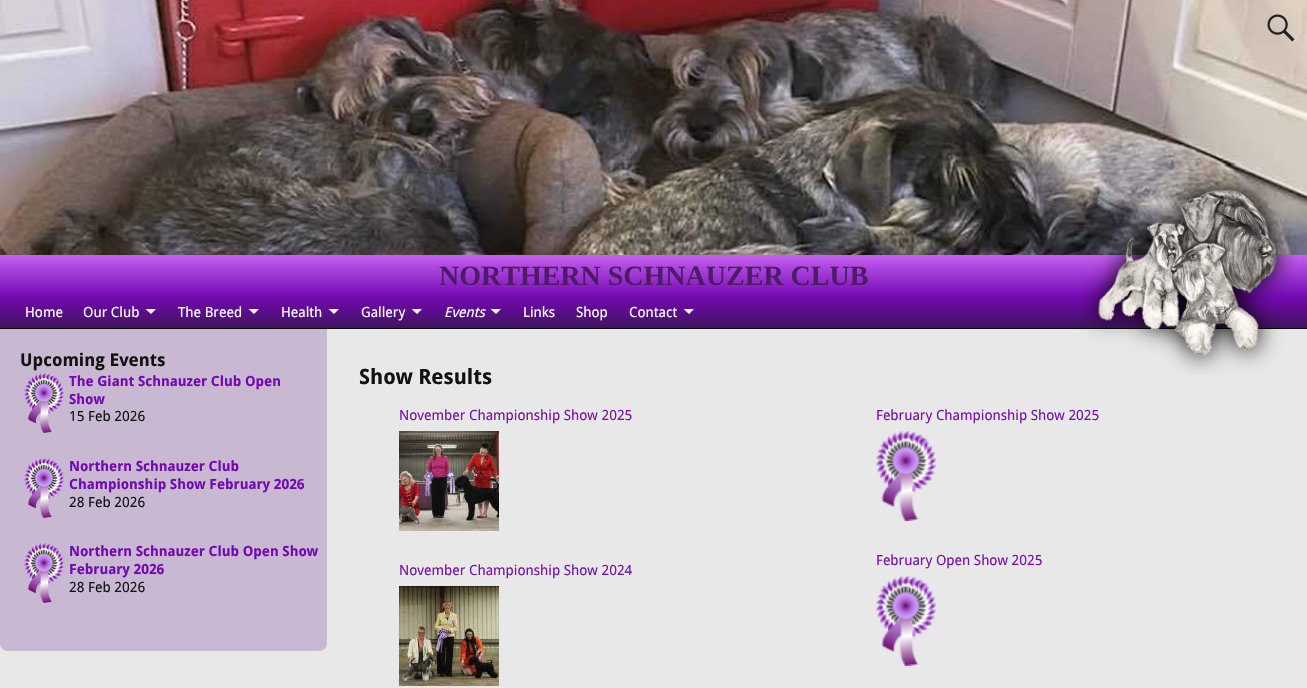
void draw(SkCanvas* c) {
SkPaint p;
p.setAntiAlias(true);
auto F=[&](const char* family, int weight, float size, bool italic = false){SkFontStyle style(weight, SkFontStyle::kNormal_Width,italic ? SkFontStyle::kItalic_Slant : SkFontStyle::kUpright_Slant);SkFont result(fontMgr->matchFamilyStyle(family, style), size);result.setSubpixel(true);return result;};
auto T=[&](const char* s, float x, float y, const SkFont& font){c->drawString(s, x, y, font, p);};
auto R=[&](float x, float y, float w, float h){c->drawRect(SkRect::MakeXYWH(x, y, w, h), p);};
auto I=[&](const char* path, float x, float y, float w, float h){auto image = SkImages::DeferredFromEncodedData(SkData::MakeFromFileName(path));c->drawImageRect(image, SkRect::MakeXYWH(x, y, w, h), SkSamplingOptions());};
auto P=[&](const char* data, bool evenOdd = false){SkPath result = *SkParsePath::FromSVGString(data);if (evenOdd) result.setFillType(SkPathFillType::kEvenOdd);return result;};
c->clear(0xffe8e8e8);
I("1.png",0,0,1307,255);
I("2.png",1267,14,28,28);
{
const SkColor colors[] = {0xffc560f1,0xff7409b3};
const float stops[] = {0,1};
const SkPoint ends[] = {{654,255}, {654,297}};
p.setShader(SkGradientShader::MakeLinear(ends, colors, stops, 2, SkTileMode::kClamp));
p.setAlpha(255);
}
R(0,255,1307,42);
auto f1 = F("Liberation Serif",700,28);
p.setShader(nullptr);
p.setColor(0xff4f1b69);
T("NORTHERN SCHNAUZER CLUB",439,285,f1);
{
const SkColor colors[] = {0xff7409b3,0xff3f135e};
const float stops[] = {0,1};
const SkPoint ends[] = {{654,297}, {654,328}};
p.setShader(SkGradientShader::MakeLinear(ends, colors, stops, 2, SkTileMode::kClamp));
p.setAlpha(255);
}
R(0,297,1307,31);
p.setShader(nullptr);
p.setColor(0xff000000);
R(0,328,1307,1);
auto f2 = F("Droid Sans",400,14);
p.setColor(0xffffffff);
T("Home",25,317,f2);
T("Our Club",83,317,f2);
c->drawPath(P("M145.5 309h10.5l-5 5z"),p);
T("The Breed",178,317,f2);
c->drawPath(P("M248.5 309h10.5l-5 5z"),p);
T("Health",281,317,f2);
c->drawPath(P("M328.5 309h10.5l-5 5z"),p);
T("Gallery",361,317,f2);
c->drawPath(P("M411.5 309h10.5l-5 5z"),p);
auto f3 = F("Droid Sans",400,14,true);
T("Events",444,317,f3);
c->drawPath(P("M490.5 309h10.5l-5 5z"),p);
T("Links",523,317,f2);
T("Shop",576,317,f2);
T("Contact",629,317,f2);
c->drawPath(P("M683.5 309h10.5l-5 5z"),p);
I("3.png",1079,169,218,206);
p.setColor(0xffc8b8d1);
c->drawPath(P("M0 329h327v314c0 4.5-3.5 8-8 8h-311c-4.5 0-8-3.5-8-8z"),p);
auto f4 = F("Droid Sans",700,17.5);
p.setColor(0xff121212);
T("Upcoming Events",20,366,f4);
I("4.png",24,373,40,60);
auto f5 = F("Droid Sans",700,14);
p.setColor(0xff7409b3);
T("The Giant Schnauzer Club Open",69,386,f5);
T("Show",69,404,f5);
p.setColor(0xff121212);
T("15 Feb 2026",69,421,f2);
I("4.png",24,458,40,60);
p.setColor(0xff7409b3);
T("Northern Schnauzer Club",69,471,f5);
T("Championship Show February 2026",69,489,f5);
p.setColor(0xff121212);
T("28 Feb 2026",69,507,f2);
I("4.png",24,543,40,60);
p.setColor(0xff7409b3);
T("Northern Schnauzer Club Open Show",69,556,f5);
T("February 2026",69,574,f5);
p.setColor(0xff121212);
T("28 Feb 2026",69,592,f2);
auto f6 = F("Droid Sans",700,21);
T("Show Results",359,384,f6);
p.setColor(0xff7811aa);
T("November Championship Show 2025",399,420,f2);
I("5.png",399,431,100,100);
T("February Championship Show 2025",876,420,f2);
I("6.png",876,431,60,90);
T("February Open Show 2025",876,565,f2);
I("6.png",876,576,60,90);
T("November Championship Show 2024",399,575,f2);
I("7.png",399,586,100,100);
}
